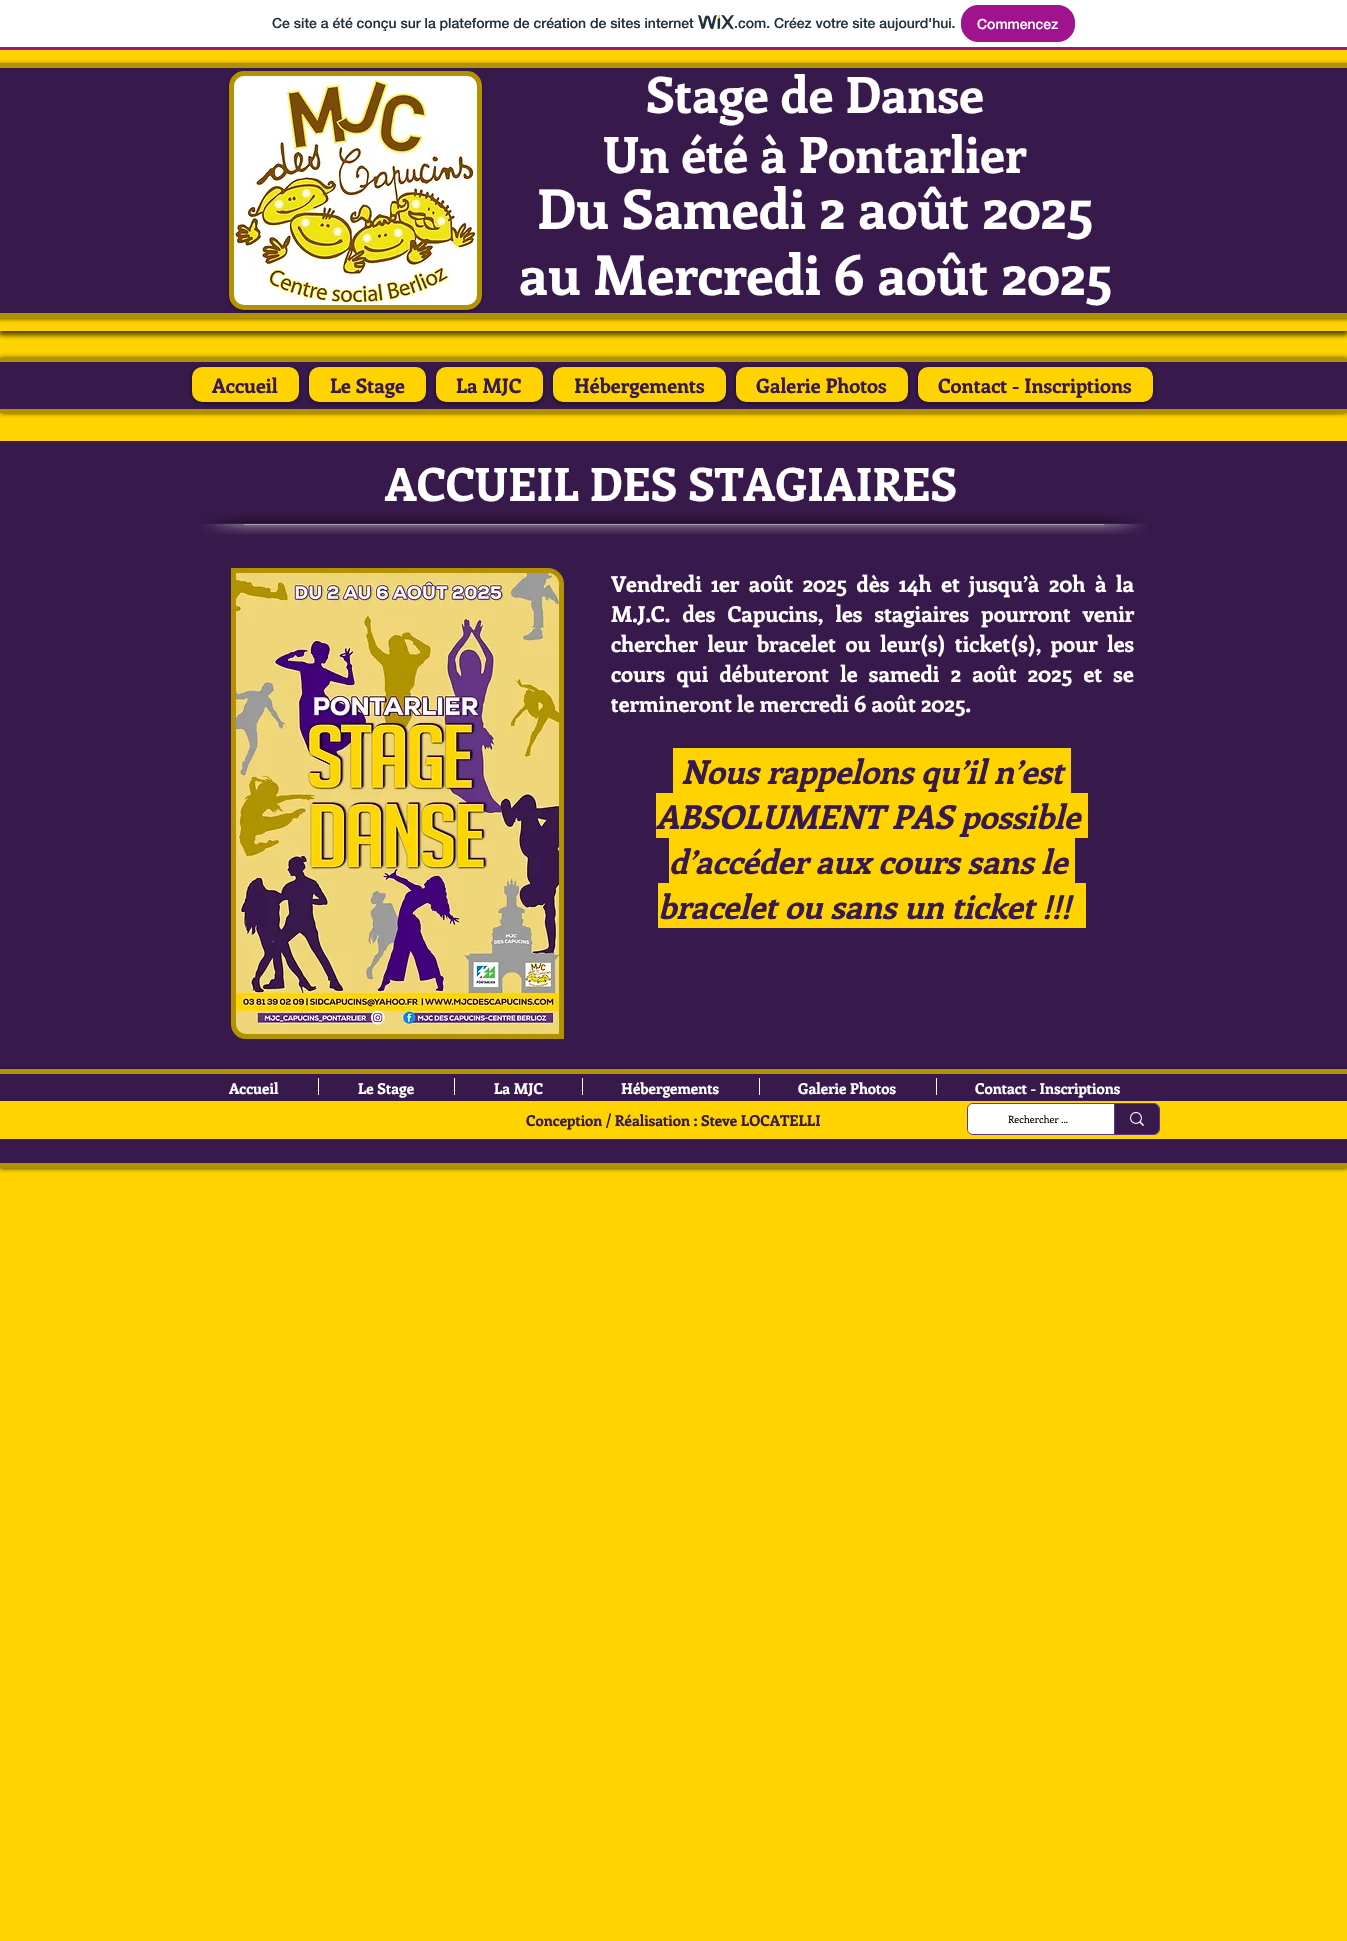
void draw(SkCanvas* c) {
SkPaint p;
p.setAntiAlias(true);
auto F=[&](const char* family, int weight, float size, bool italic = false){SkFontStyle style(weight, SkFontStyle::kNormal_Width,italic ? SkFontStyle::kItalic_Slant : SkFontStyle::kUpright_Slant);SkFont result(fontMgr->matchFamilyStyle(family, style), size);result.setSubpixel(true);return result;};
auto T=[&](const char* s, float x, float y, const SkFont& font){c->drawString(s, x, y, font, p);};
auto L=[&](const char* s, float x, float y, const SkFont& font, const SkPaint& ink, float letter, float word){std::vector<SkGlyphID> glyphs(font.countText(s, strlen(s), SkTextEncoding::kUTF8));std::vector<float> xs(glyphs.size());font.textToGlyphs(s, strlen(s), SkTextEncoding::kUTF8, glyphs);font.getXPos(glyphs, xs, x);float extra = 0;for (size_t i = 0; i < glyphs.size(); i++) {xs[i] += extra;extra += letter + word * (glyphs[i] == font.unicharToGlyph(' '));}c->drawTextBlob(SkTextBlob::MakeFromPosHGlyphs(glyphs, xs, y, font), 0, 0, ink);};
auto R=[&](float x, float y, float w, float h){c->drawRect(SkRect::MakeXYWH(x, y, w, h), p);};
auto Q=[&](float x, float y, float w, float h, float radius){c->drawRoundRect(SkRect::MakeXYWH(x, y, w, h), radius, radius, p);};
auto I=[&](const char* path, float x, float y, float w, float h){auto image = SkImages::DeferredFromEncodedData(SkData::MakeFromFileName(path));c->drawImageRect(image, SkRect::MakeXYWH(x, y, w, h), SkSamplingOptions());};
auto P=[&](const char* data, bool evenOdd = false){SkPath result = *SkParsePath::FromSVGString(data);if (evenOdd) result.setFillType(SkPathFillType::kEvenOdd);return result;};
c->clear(0xffffd300);
c->save();
c->clipRect(SkRect::MakeXYWH(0,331,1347,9));
p.setColor(0xb3000000);
p.setMaskFilter(SkMaskFilter::MakeBlur(kNormal_SkBlurStyle, 2.5));
c->drawRect(SkRect::MakeXYWH(-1,52,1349,283),p);
p.setMaskFilter(nullptr);
c->restore();
p.setColor(0xffffffff);
R(0,0,1347,47);
p.setColor(0xffa0138e);
R(0,47,1347,3);
auto f1 = F("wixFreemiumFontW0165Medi",500,14);
p.setColor(0xff20303c);
T("Ce site a été conçu sur la plateforme de création de sites internet",272,28,f1);
I("1.png",698,15,36,15);
T(".com. Créez votre site aujourd'hui.",734,28,f1);
p.setColor(0xffa0138e);
c->drawRoundRect(SkRect::MakeXYWH(961.5,5.5,113,36),16.5,16.5,p);
p.setStroke(true);
p.setStrokeWidth(1);
c->drawRoundRect(SkRect::MakeXYWH(961.5,5.5,113,36),16.5,16.5,p);
p.setStroke(false);
p.setColor(0xffffffff);
T("Commencez",977,29,f1);
p.setColor(0x99000000);
p.setMaskFilter(SkMaskFilter::MakeBlur(kNormal_SkBlurStyle, 2));
c->drawRect(SkRect::MakeXYWH(-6,64,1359,255),p);
p.setMaskFilter(nullptr);
p.setColor(0xff37194b);
c->drawRect(SkRect::MakeXYWH(-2.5,65.5,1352,250),p);
p.setStroke(true);
p.setStrokeWidth(5);
p.setColor(0xffb29200);
c->drawRect(SkRect::MakeXYWH(-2.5,65.5,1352,250),p);
p.setStroke(false);
p.setColor(0x80000000);
p.setMaskFilter(SkMaskFilter::MakeBlur(kNormal_SkBlurStyle, 1.5));
c->drawRoundRect(SkRect::MakeXYWH(229,72,253,239),15,15,p);
p.setMaskFilter(nullptr);
p.setColor(0xffb29200);
c->drawRoundRect(SkRect::MakeXYWH(231.5,73.5,248,234),12.5,12.5,p);
p.setStroke(true);
c->drawRoundRect(SkRect::MakeXYWH(231.5,73.5,248,234),12.5,12.5,p);
I("2.png",234,76,243,229);
auto f2 = F("Enriqueta",700,50);
p.setStroke(false);
p.setColor(0xffffffff);
T("Stage de Danse",646,113,f2);
T("Un été à Pontarlier",603,173,f2);
auto f3 = F("Enriqueta",700,55);
T("Du Samedi 2 août 2025",537,229,f3);
T("au Mercredi 6 août 2025",519,295,f3);
p.setColor(0xb3000000);
p.setMaskFilter(SkMaskFilter::MakeBlur(kNormal_SkBlurStyle, 2.5));
c->drawRect(SkRect::MakeXYWH(0,358,1347,55),p);
p.setMaskFilter(nullptr);
p.setColor(0xff37194b);
R(0,362,1347,47);
p.setColor(0xffb29200);
R(0,358,1347,4);
R(0,409,1347,4);
p.setColor(0x99000000);
p.setMaskFilter(SkMaskFilter::MakeBlur(kNormal_SkBlurStyle, 2));
c->drawRoundRect(SkRect::MakeXYWH(192,368,107,35),10,10,p);
p.setMaskFilter(nullptr);
p.setColor(0xffffd300);
Q(192,367,107,35,10);
auto f4 = F("Enriqueta",700,20);
p.setColor(0xff37194b);
T("Accueil",212,393,f4);
p.setColor(0x99000000);
p.setMaskFilter(SkMaskFilter::MakeBlur(kNormal_SkBlurStyle, 2));
c->drawRoundRect(SkRect::MakeXYWH(309,368,117,35),10,10,p);
p.setMaskFilter(nullptr);
p.setColor(0xffffd300);
Q(309,367,117,35,10);
p.setColor(0xff37194b);
T("Le Stage",330,393,f4);
p.setColor(0x99000000);
p.setMaskFilter(SkMaskFilter::MakeBlur(kNormal_SkBlurStyle, 2));
c->drawRoundRect(SkRect::MakeXYWH(436,368,107,35),10,10,p);
p.setMaskFilter(nullptr);
p.setColor(0xffffd300);
Q(436,367,107,35,10);
p.setColor(0xff37194b);
T("La MJC",456,393,f4);
p.setColor(0x99000000);
p.setMaskFilter(SkMaskFilter::MakeBlur(kNormal_SkBlurStyle, 2));
c->drawRoundRect(SkRect::MakeXYWH(553,368,173,35),10,10,p);
p.setMaskFilter(nullptr);
p.setColor(0xffffd300);
Q(553,367,173,35,10);
p.setColor(0xff37194b);
T("Hébergements",574,393,f4);
p.setColor(0x99000000);
p.setMaskFilter(SkMaskFilter::MakeBlur(kNormal_SkBlurStyle, 2));
c->drawRoundRect(SkRect::MakeXYWH(736,368,172,35),10,10,p);
p.setMaskFilter(nullptr);
p.setColor(0xffffd300);
Q(736,367,172,35,10);
p.setColor(0xff37194b);
T("Galerie Photos",756,393,f4);
p.setColor(0x99000000);
p.setMaskFilter(SkMaskFilter::MakeBlur(kNormal_SkBlurStyle, 2));
c->drawRoundRect(SkRect::MakeXYWH(918,368,235,35),10,10,p);
p.setMaskFilter(nullptr);
p.setColor(0xffffd300);
Q(918,367,235,35,10);
p.setColor(0xff37194b);
T("Contact - Inscriptions",938,393,f4);
R(0,441,1347,628);
auto f5 = F("Enriqueta",700,46);
p.setColor(0xffffffff);
T("ACCUEIL DES STAGIAIRES",385,501,f5);
I("3.png",244,514,860,21);
I("4.png",202,514,42,21);
I("5.png",1104,514,42,21);
p.setColor(0xffb29200);
c->drawPath(P("M233.5 570.5h314.5c7.5 0 13.5 6 13.5 13.5v452.5h-315.5c-7 0-12.5-5.5-12.5-12.5z"),p);
p.setStroke(true);
c->drawPath(P("M233.5 570.5h314.5c7.5 0 13.5 6 13.5 13.5v452.5h-315.5c-7 0-12.5-5.5-12.5-12.5z"),p);
I("6.png",236,573,323,461);
auto f6 = F("Enriqueta",700,22);
p.setStroke(false);
p.setColor(0xffffffff);
L("Vendredi 1er août 2025 dès 14h et jusqu’à 20h à la",611,592,f6,p,0,4.25);
L("M.J.C. des Capucins, les stagiaires pourront venir",611,622,f6,p,0,7);
L("chercher leur bracelet ou leur(s) ticket(s), pour les",611,652,f6,p,0,4.25);
L("cours qui débuteront le samedi 2 août 2025 et se",611,682,f6,p,0,6);
T("termineront le mercredi 6 août 2025.",611,712,f6);
p.setColor(0xffffd300);
R(673,748,398,45);
auto f7 = F("Enriqueta",700,33,true);
p.setColor(0xff37194b);
T("Nous rappelons qu’il n’est",681,784,f7);
p.setColor(0xffffd300);
R(656,793,432,45);
p.setColor(0xff37194b);
T("ABSOLUMENT PAS possible",656,829,f7);
p.setColor(0xffffd300);
R(669,838,406,45);
p.setColor(0xff37194b);
T("d’accéder aux cours sans le",669,874,f7);
p.setColor(0xffffd300);
R(658,883,428,45);
p.setColor(0xff37194b);
T("bracelet ou sans un ticket !!!",658,919,f7);
p.setColor(0x99000000);
p.setMaskFilter(SkMaskFilter::MakeBlur(kNormal_SkBlurStyle, 2));
c->drawRect(SkRect::MakeXYWH(0,1070,1347,99),p);
p.setMaskFilter(nullptr);
p.setColor(0xffb29200);
R(0,1069,1347,5);
R(0,1163,1347,5);
p.setColor(0xff37194b);
R(0,1074,1347,89);
auto f8 = F("Enriqueta",700,15);
p.setColor(0xffffffff);
T("Accueil",229,1094,f8);
R(318,1078,1,17);
T("Le Stage",358,1094,f8);
R(454,1078,1,17);
T("La MJC",494,1094,f8);
R(582,1078,1,17);
T("Hébergements",621,1094,f8);
R(759,1078,1,17);
T("Galerie Photos",798,1094,f8);
R(936,1078,1,17);
T("Contact - Inscriptions",975,1094,f8);
p.setColor(0xffffd300);
R(0,1101,1347,38);
p.setColor(0xff37194b);
T("Conception / Réalisation : Steve LOCATELLI",526,1126,f8);
p.setStroke(true);
p.setStrokeWidth(1);
p.setColor(0xff633484);
c->drawRoundRect(SkRect::MakeXYWH(967.5,1103.5,192,31),5.5,5.5,p);
p.setStroke(false);
p.setColor(0xffffffff);
Q(968,1104,191,30,5);
auto f9 = F("Enriqueta",400,10);
p.setColor(0xff000000);
T("Rechercher ...",1008,1123,f9);
p.setColor(0xff37194b);
c->drawPath(P("M1114 1104h40c3 0 5 2 5 5v20c0 3-2 5-5 5h-40z"),p);
p.setColor(0xff633484);
R(1114,1104,1,30);
I("7.png",1130,1112,14,14);
}
